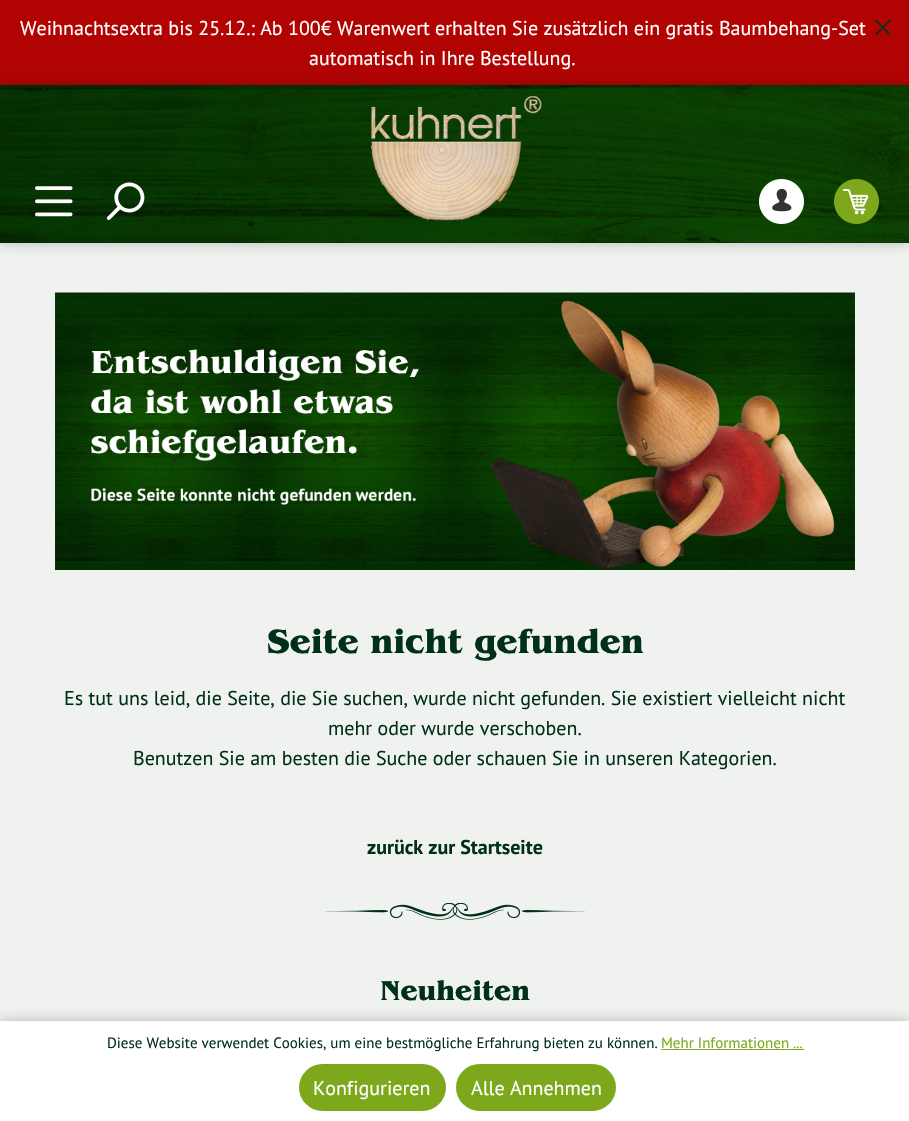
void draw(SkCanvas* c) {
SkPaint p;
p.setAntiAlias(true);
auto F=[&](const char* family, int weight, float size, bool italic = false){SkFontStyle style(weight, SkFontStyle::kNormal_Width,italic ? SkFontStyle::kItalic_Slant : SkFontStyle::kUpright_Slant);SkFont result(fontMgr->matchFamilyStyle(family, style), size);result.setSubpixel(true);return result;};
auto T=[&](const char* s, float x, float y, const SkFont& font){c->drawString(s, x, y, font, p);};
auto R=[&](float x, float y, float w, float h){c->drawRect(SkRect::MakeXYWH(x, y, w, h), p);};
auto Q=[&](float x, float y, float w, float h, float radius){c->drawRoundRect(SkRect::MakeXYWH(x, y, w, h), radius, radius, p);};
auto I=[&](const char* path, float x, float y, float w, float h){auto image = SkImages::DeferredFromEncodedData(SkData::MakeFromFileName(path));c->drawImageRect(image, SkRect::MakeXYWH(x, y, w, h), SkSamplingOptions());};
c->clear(0xfff0f2f0);
p.setColor(0xffb20303);
R(0,0,909,85);
auto f1 = F("PT Sans",400,20);
p.setColor(0xffffffff);
T("Weihnachtsextra bis 25.12.: Ab 100€ Warenwert erhalten Sie zusätzlich ein gratis Baumbehang-Set",20,35,f1);
T("automatisch in Ihre Bestellung.",309,65,f1);
I("1.png",875,19,16,17);
p.setColor(0x40000000);
p.setMaskFilter(SkMaskFilter::MakeBlur(kNormal_SkBlurStyle, 6));
c->drawRect(SkRect::MakeXYWH(0,85,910,158),p);
p.setMaskFilter(nullptr);
p.setColor(0xff002f1b);
R(0,242,909,1);
I("2.png",0,85,909,158);
I("3.png",366,96,176,125);
I("4.png",35,186,38,31);
I("5.png",106,182,39,38);
I("6.png",759,179,45,45);
I("7.png",834,179,45,45);
I("8.png",55,292,800,278);
auto f2 = F("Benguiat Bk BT",700,34.75);
T("Seite nicht gefunden",267,653,f2);
T("Es tut uns leid, die Seite, die Sie suchen, wurde nicht gefunden. Sie existiert vielleicht nicht",64,705,f1);
T("mehr oder wurde verschoben.",328,735,f1);
T("Benutzen Sie am besten die Suche oder schauen Sie in unseren Kategorien.",133,765,f1);
I("9.png",325,903,260,17);
auto f3 = F("PT Sans",700,20);
T("zurück zur Startseite",367,854,f3);
auto f4 = F("Benguiat Bk BT",700,28.25);
T("Neuheiten",380,1000,f4);
p.setColor(0x40000000);
p.setMaskFilter(SkMaskFilter::MakeBlur(kNormal_SkBlurStyle, 6));
c->drawRect(SkRect::MakeXYWH(0,1021,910,100),p);
p.setMaskFilter(nullptr);
p.setColor(0xffffffff);
R(0,1021,909,100);
auto f5 = F("PT Sans",400,15);
p.setColor(0xff002f1b);
T("Diese Website verwendet Cookies, um eine bestmögliche Erfahrung bieten zu können.",107,1048,f5);
p.setColor(0xff7da81c);
T("Mehr Informationen ...",661,1048,f5);
R(661,1049,143,1);
Q(299,1064,147,47,23.5);
p.setColor(0xffffffff);
T("Konfigurieren",313,1095,f1);
p.setColor(0xff7da81c);
Q(456,1064,160,47,23.5);
p.setColor(0xffffffff);
T("Alle Annehmen",471,1095,f1);
}
